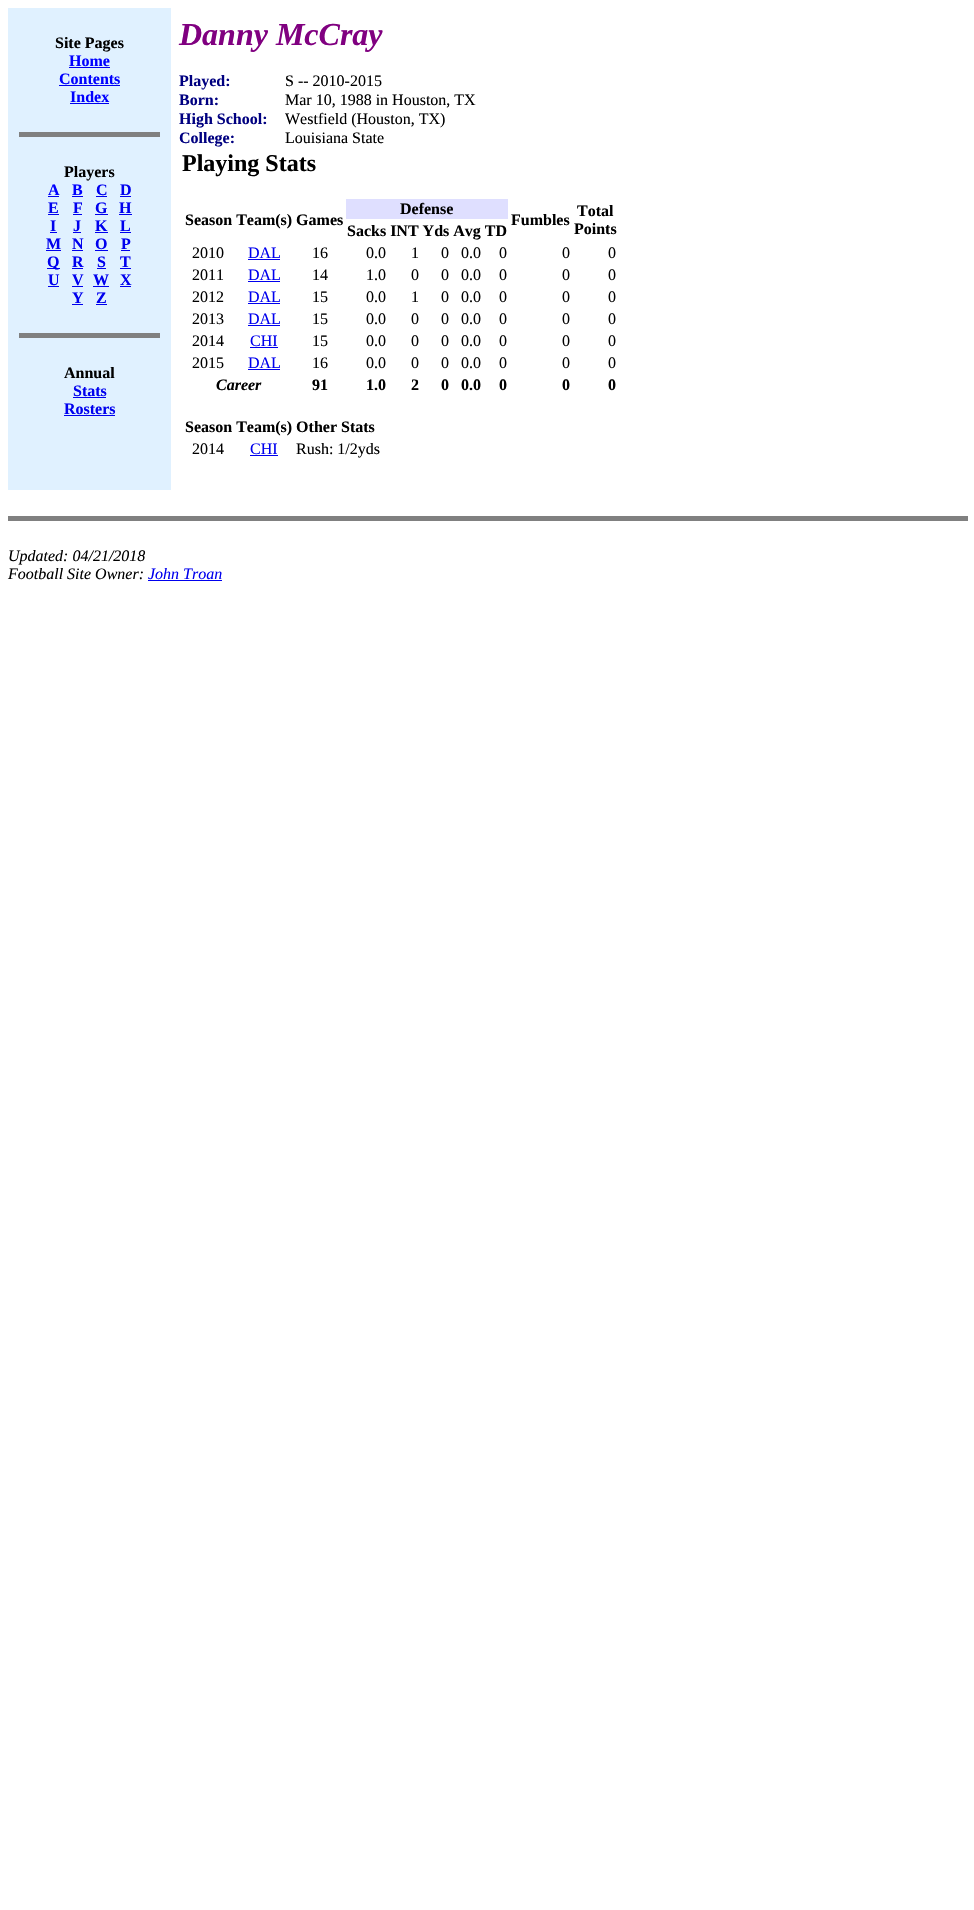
void draw(SkCanvas* c) {
SkPaint p;
p.setAntiAlias(true);
auto F=[&](const char* family, int weight, float size, bool italic = false){SkFontStyle style(weight, SkFontStyle::kNormal_Width,italic ? SkFontStyle::kItalic_Slant : SkFontStyle::kUpright_Slant);SkFont result(fontMgr->matchFamilyStyle(family, style), size);result.setSubpixel(true);return result;};
auto T=[&](const char* s, float x, float y, const SkFont& font){c->drawString(s, x, y, font, p);};
auto R=[&](float x, float y, float w, float h){c->drawRect(SkRect::MakeXYWH(x, y, w, h), p);};
c->clear(0xffffffff);
p.setColor(0xffe0f1ff);
R(8,8,163,482);
auto f1 = F("Liberation Serif",700,16);
p.setColor(0xff000000);
T("Site Pages",55,48,f1);
p.setColor(0xff0000ff);
T("Home",69,66,f1);
p.setColor(0xff0000ee);
R(69,67,41,1);
p.setColor(0xff0000ff);
T("Contents",59,84,f1);
p.setColor(0xff0000ee);
R(59,85,61,1);
p.setColor(0xff0000ff);
T("Index",70,102,f1);
p.setColor(0xff0000ee);
R(70,103,39,1);
p.setColor(0xff808080);
R(19,132,141,5);
p.setColor(0xff000000);
T("Players",64,177,f1);
p.setColor(0xff0000ff);
T("A",48,195,f1);
p.setColor(0xff0000ee);
R(48,196,11,1);
p.setColor(0xff0000ff);
T("B",72,195,f1);
p.setColor(0xff0000ee);
R(72,196,11,1);
T("C",96,195,f1);
R(96,196,11,1);
T("D",120,195,f1);
R(120,196,11,1);
T("E",48,213,f1);
R(48,214,11,1);
T("F",73,213,f1);
R(73,214,9,1);
T("G",95,213,f1);
R(95,214,13,1);
T("H",119,213,f1);
R(119,214,13,1);
T("I",50,231,f1);
R(50,232,7,1);
T("J",73,231,f1);
R(73,232,8,1);
T("K",95,231,f1);
R(95,232,13,1);
T("L",120,231,f1);
R(120,232,11,1);
T("M",46,249,f1);
R(46,250,15,1);
T("N",72,249,f1);
R(72,250,11,1);
T("O",95,249,f1);
R(95,250,13,1);
T("P",121,249,f1);
R(121,250,9,1);
R(47,268,13,1);
T("Q",47,267,f1);
T("R",72,267,f1);
R(72,268,11,1);
T("S",97,267,f1);
R(97,268,9,1);
T("T",120,267,f1);
R(120,268,11,1);
T("U",48,285,f1);
R(48,286,11,1);
T("V",72,285,f1);
R(72,286,11,1);
T("W",93,285,f1);
R(93,286,16,1);
T("X",120,285,f1);
R(120,286,11,1);
T("Y",72,303,f1);
R(72,304,11,1);
T("Z",96,303,f1);
R(96,304,11,1);
p.setColor(0xff808080);
R(19,333,141,5);
p.setColor(0xff000000);
T("Annual",64,378,f1);
p.setColor(0xff0000ee);
T("Stats",73,396,f1);
R(73,397,33,1);
T("Rosters",64,414,f1);
R(64,415,51,1);
auto f2 = F("Liberation Serif",700,32,true);
p.setColor(0xff800080);
T("Danny McCray",179,45,f2);
p.setColor(0xff000080);
T("Played:",179,86,f1);
auto f3 = F("Liberation Serif",400,16);
p.setColor(0xff000000);
T("S -- 2010-2015",285,86,f3);
p.setColor(0xff000080);
T("Born:",179,105,f1);
p.setColor(0xff000000);
T("Mar 10, 1988 in Houston, TX",285,105,f3);
p.setColor(0xff000080);
T("High School:",179,124,f1);
p.setColor(0xff000000);
T("Westfield (Houston, TX)",285,124,f3);
p.setColor(0xff000080);
T("College:",179,143,f1);
p.setColor(0xff000000);
T("Louisiana State",285,143,f3);
auto f4 = F("Liberation Serif",700,24);
T("Playing Stats",182,171,f4);
T("Season Team(s) Games",185,225,f1);
p.setColor(0xffdfdfff);
R(346,199,162,20);
p.setColor(0xff000000);
T("Defense",400,214,f1);
T("Fumbles",511,225,f1);
T("Total",577,216,f1);
T("Points",574,234,f1);
T("Sacks INT Yds Avg TD",347,236,f1);
T("2010",192,258,f3);
p.setColor(0xff0000ee);
T("DAL",248,258,f3);
R(248,259,32,1);
p.setColor(0xff000000);
T("16",312,258,f3);
T("0.0",366,258,f3);
T("1",411,258,f3);
T("0",441,258,f3);
T("0.0",461,258,f3);
T("0",499,258,f3);
T("0",562,258,f3);
T("0",608,258,f3);
T("2011",192,280,f3);
p.setColor(0xff0000ee);
T("DAL",248,280,f3);
R(248,281,32,1);
p.setColor(0xff000000);
T("14",312,280,f3);
T("1.0",366,280,f3);
T("0",411,280,f3);
T("0",441,280,f3);
T("0.0",461,280,f3);
T("0",499,280,f3);
T("0",562,280,f3);
T("0",608,280,f3);
T("2012",192,302,f3);
p.setColor(0xff0000ee);
T("DAL",248,302,f3);
R(248,303,32,1);
p.setColor(0xff000000);
T("15",312,302,f3);
T("0.0",366,302,f3);
T("1",411,302,f3);
T("0",441,302,f3);
T("0.0",461,302,f3);
T("0",499,302,f3);
T("0",562,302,f3);
T("0",608,302,f3);
T("2013",192,324,f3);
p.setColor(0xff0000ee);
T("DAL",248,324,f3);
R(248,325,32,1);
p.setColor(0xff000000);
T("15",312,324,f3);
T("0.0",366,324,f3);
T("0",411,324,f3);
T("0",441,324,f3);
T("0.0",461,324,f3);
T("0",499,324,f3);
T("0",562,324,f3);
T("0",608,324,f3);
T("2014",192,346,f3);
p.setColor(0xff0000ee);
T("CHI",250,346,f3);
R(250,347,28,1);
p.setColor(0xff000000);
T("15",312,346,f3);
T("0.0",366,346,f3);
T("0",411,346,f3);
T("0",441,346,f3);
T("0.0",461,346,f3);
T("0",499,346,f3);
T("0",562,346,f3);
T("0",608,346,f3);
T("2015",192,368,f3);
p.setColor(0xff0000ee);
T("DAL",248,368,f3);
R(248,369,32,1);
p.setColor(0xff000000);
T("16",312,368,f3);
T("0.0",366,368,f3);
T("0",411,368,f3);
T("0",441,368,f3);
T("0.0",461,368,f3);
T("0",499,368,f3);
T("0",562,368,f3);
T("0",608,368,f3);
auto f5 = F("Liberation Serif",700,16,true);
T("Career",216,390,f5);
T("91",312,390,f1);
T("1.0",366,390,f1);
T("2",411,390,f1);
T("0",441,390,f1);
T("0.0",461,390,f1);
T("0",499,390,f1);
T("0",562,390,f1);
T("0",608,390,f1);
T("Season Team(s) Other Stats",185,432,f1);
T("2014",192,454,f3);
p.setColor(0xff0000ee);
T("CHI",250,454,f3);
R(250,455,28,1);
p.setColor(0xff000000);
T("Rush: 1/2yds",296,454,f3);
p.setColor(0xff808080);
R(8,516,960,5);
auto f6 = F("Liberation Serif",400,16,true);
p.setColor(0xff000000);
T("Updated: 04/21/2018",8,561,f6);
T("Football Site Owner:",8,579,f6);
p.setColor(0xff0000ee);
T("John Troan",148,579,f6);
R(148,580,74,1);
}
